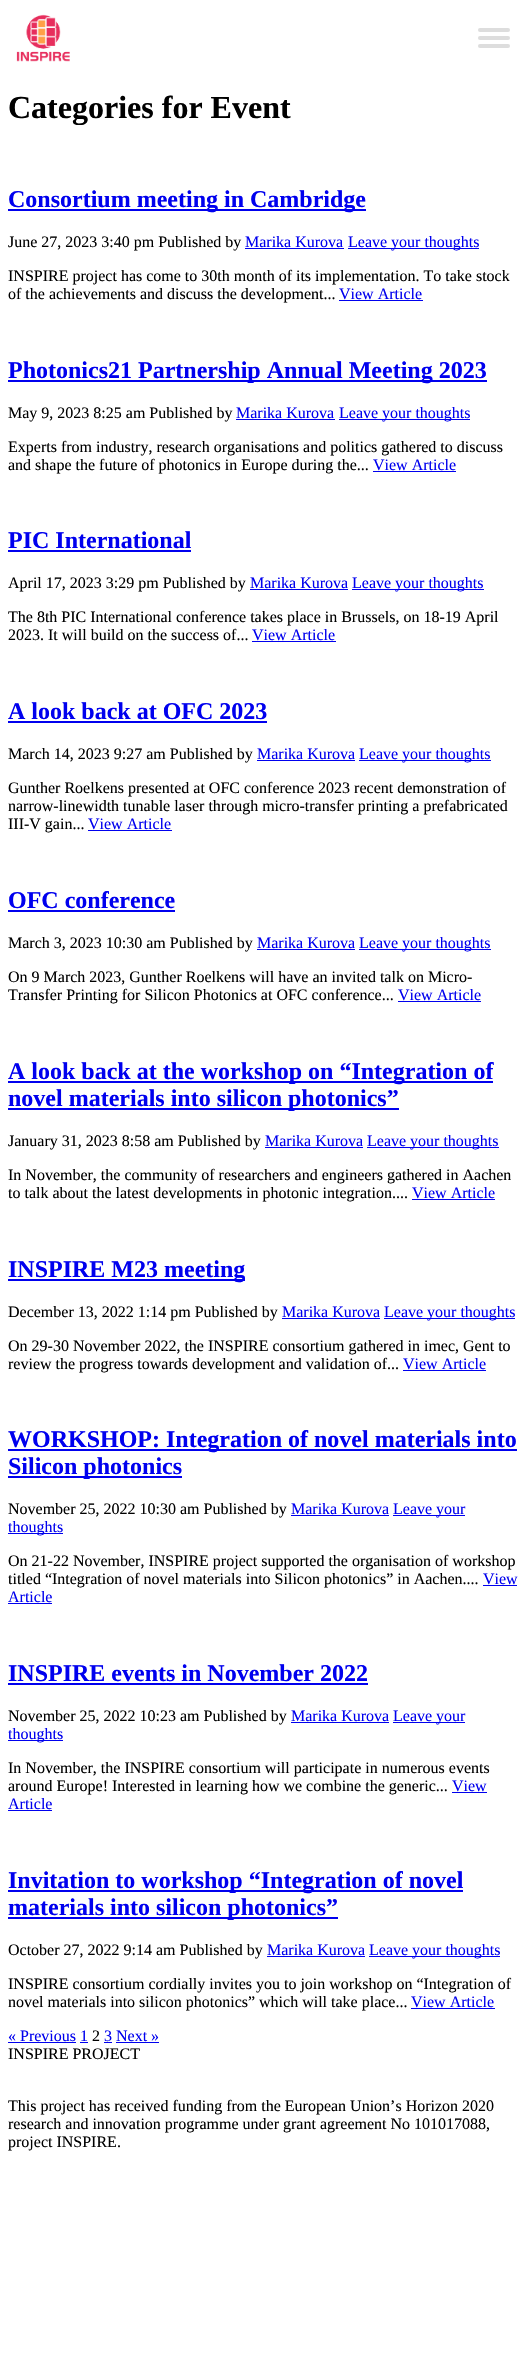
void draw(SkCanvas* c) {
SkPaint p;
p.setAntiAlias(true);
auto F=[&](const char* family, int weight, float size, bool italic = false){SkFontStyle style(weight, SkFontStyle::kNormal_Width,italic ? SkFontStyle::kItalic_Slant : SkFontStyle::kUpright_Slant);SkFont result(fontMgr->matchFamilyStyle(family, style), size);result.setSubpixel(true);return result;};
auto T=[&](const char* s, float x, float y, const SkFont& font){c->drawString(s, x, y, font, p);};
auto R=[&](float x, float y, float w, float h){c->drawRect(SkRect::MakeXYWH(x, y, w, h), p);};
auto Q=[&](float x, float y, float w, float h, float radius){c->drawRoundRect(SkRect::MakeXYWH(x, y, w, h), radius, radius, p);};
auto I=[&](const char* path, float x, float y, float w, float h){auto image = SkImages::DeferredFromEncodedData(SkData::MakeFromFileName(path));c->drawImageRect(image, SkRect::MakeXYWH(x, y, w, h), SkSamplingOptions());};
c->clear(0xffffffff);
I("1.png",16,14,54,48);
p.setColor(0xffdddddd);
Q(478,28,32,4,2);
Q(478,36,32,4,2);
Q(478,44,32,4,2);
auto f1 = F("Liberation Serif",700,32);
p.setColor(0xff000000);
T("Categories for Event",8,118,f1);
p.setColor(0xff0000ee);
R(8,209,358,2);
auto f2 = F("Liberation Serif",700,24);
T("Consortium meeting in Cambridge",8,207,f2);
auto f3 = F("Liberation Serif",400,16);
p.setColor(0xff000000);
T("June 27, 2023 3:40 pm Published by",8,247,f3);
p.setColor(0xff0000ee);
T("Marika Kurova",245,247,f3);
R(245,248,99,1);
R(348,248,131,1);
T("Leave your thoughts",348,247,f3);
p.setColor(0xff000000);
T("INSPIRE project has come to 30th month of its implementation. To take stock",8,281,f3);
T("of the achievements and discuss the development...",8,299,f3);
p.setColor(0xff0000ee);
T("View Article",339,299,f3);
R(339,300,84,1);
R(8,380,479,2);
T("Photonics21 Partnership Annual Meeting 2023",8,378,f2);
p.setColor(0xff000000);
T("May 9, 2023 8:25 am Published by",8,418,f3);
p.setColor(0xff0000ee);
T("Marika Kurova",236,418,f3);
R(236,419,99,1);
R(339,419,131,1);
T("Leave your thoughts",339,418,f3);
p.setColor(0xff000000);
T("Experts from industry, research organisations and politics gathered to discuss",8,452,f3);
T("and shape the future of photonics in Europe during the...",8,470,f3);
p.setColor(0xff0000ee);
T("View Article",373,470,f3);
R(373,471,83,1);
T("PIC International",8,548,f2);
R(8,550,183,2);
p.setColor(0xff000000);
T("April 17, 2023 3:29 pm Published by",8,588,f3);
p.setColor(0xff0000ee);
T("Marika Kurova",250,588,f3);
R(250,589,98,1);
R(352,589,132,1);
T("Leave your thoughts",352,588,f3);
p.setColor(0xff000000);
T("The 8th PIC International conference takes place in Brussels, on 18-19 April",8,622,f3);
T("2023. It will build on the success of...",8,640,f3);
p.setColor(0xff0000ee);
T("View Article",252,640,f3);
R(252,641,84,1);
T("A look back at OFC 2023",8,719,f2);
R(8,721,259,2);
p.setColor(0xff000000);
T("March 14, 2023 9:27 am Published by",8,759,f3);
p.setColor(0xff0000ee);
T("Marika Kurova",257,759,f3);
R(257,760,98,1);
R(359,760,132,1);
T("Leave your thoughts",359,759,f3);
p.setColor(0xff000000);
T("Gunther Roelkens presented at OFC conference 2023 recent demonstration of",8,793,f3);
T("narrow-linewidth tunable laser through micro-transfer printing a prefabricated",8,811,f3);
T("III-V gain...",8,829,f3);
p.setColor(0xff0000ee);
T("View Article",88,829,f3);
R(88,830,84,1);
T("OFC conference",8,908,f2);
R(8,910,167,2);
p.setColor(0xff000000);
T("March 3, 2023 10:30 am Published by",8,948,f3);
p.setColor(0xff0000ee);
T("Marika Kurova",257,948,f3);
R(257,949,98,1);
R(359,949,132,1);
T("Leave your thoughts",359,948,f3);
p.setColor(0xff000000);
T("On 9 March 2023, Gunther Roelkens will have an invited talk on Micro-",8,982,f3);
T("Transfer Printing for Silicon Photonics at OFC conference...",8,1000,f3);
p.setColor(0xff0000ee);
T("View Article",398,1000,f3);
R(398,1001,83,1);
R(8,1081,485,2);
T("A look back at the workshop on “Integration of",8,1079,f2);
R(8,1108,391,2);
T("novel materials into silicon photonics”",8,1106,f2);
p.setColor(0xff000000);
T("January 31, 2023 8:58 am Published by",8,1146,f3);
p.setColor(0xff0000ee);
T("Marika Kurova",265,1146,f3);
R(265,1147,98,1);
R(367,1147,132,1);
T("Leave your thoughts",367,1146,f3);
p.setColor(0xff000000);
T("In November, the community of researchers and engineers gathered in Aachen",8,1180,f3);
T("to talk about the latest developments in photonic integration....",8,1198,f3);
p.setColor(0xff0000ee);
T("View Article",412,1198,f3);
R(412,1199,83,1);
R(8,1279,237,2);
T("INSPIRE M23 meeting",8,1277,f2);
p.setColor(0xff000000);
T("December 13, 2022 1:14 pm Published by",8,1317,f3);
p.setColor(0xff0000ee);
T("Marika Kurova",282,1317,f3);
R(282,1318,98,1);
R(384,1318,131,1);
T("Leave your thoughts",384,1317,f3);
p.setColor(0xff000000);
T("On 29-30 November 2022, the INSPIRE consortium gathered in imec, Gent to",8,1351,f3);
T("review the progress towards development and validation of...",8,1369,f3);
p.setColor(0xff0000ee);
T("View Article",403,1369,f3);
R(403,1370,83,1);
R(8,1449,509,2);
T("WORKSHOP: Integration of novel materials into",8,1447,f2);
R(8,1476,174,2);
T("Silicon photonics",8,1474,f2);
p.setColor(0xff000000);
T("November 25, 2022 10:30 am Published by",8,1514,f3);
p.setColor(0xff0000ee);
T("Marika Kurova",291,1514,f3);
R(291,1515,98,1);
R(393,1515,72,1);
T("Leave your",393,1514,f3);
R(8,1533,55,1);
T("thoughts",8,1532,f3);
p.setColor(0xff000000);
T("On 21-22 November, INSPIRE project supported the organisation of workshop",8,1566,f3);
T("titled “Integration of novel materials into Silicon photonics” in Aachen....",8,1584,f3);
p.setColor(0xff0000ee);
T("View",483,1584,f3);
R(483,1585,34,1);
T("Article",8,1602,f3);
R(8,1603,44,1);
T("INSPIRE events in November 2022",8,1681,f2);
R(8,1683,360,2);
p.setColor(0xff000000);
T("November 25, 2022 10:23 am Published by",8,1721,f3);
p.setColor(0xff0000ee);
T("Marika Kurova",291,1721,f3);
R(291,1722,98,1);
R(393,1722,72,1);
T("Leave your",393,1721,f3);
R(8,1740,55,1);
T("thoughts",8,1739,f3);
p.setColor(0xff000000);
T("In November, the INSPIRE consortium will participate in numerous events",8,1773,f3);
T("around Europe! Interested in learning how we combine the generic...",8,1791,f3);
p.setColor(0xff0000ee);
T("View",452,1791,f3);
R(452,1792,35,1);
T("Article",8,1809,f3);
R(8,1810,44,1);
R(8,1890,455,2);
T("Invitation to workshop “Integration of novel",8,1888,f2);
R(8,1917,330,2);
T("materials into silicon photonics”",8,1915,f2);
p.setColor(0xff000000);
T("October 27, 2022 9:14 am Published by",8,1955,f3);
p.setColor(0xff0000ee);
T("Marika Kurova",267,1955,f3);
R(267,1956,98,1);
R(369,1956,131,1);
T("Leave your thoughts",369,1955,f3);
p.setColor(0xff000000);
T("INSPIRE consortium cordially invites you to join workshop on “Integration of",8,1989,f3);
T("novel materials into silicon photonics” which will take place...",8,2007,f3);
p.setColor(0xff0000ee);
T("View Article",411,2007,f3);
R(411,2008,84,1);
T("« Previous 1",8,2041,f3);
R(8,2042,68,1);
p.setColor(0xff000000);
T("2",92,2041,f3);
p.setColor(0xff0000ee);
T("3 Next »",104,2041,f3);
R(104,2042,8,1);
R(80,2042,8,1);
R(116,2042,43,1);
p.setColor(0xff000000);
T("INSPIRE PROJECT",8,2059,f3);
T("This project has received funding from the European Union’s Horizon 2020",8,2111,f3);
T("research and innovation programme under grant agreement No 101017088,",8,2129,f3);
T("project INSPIRE.",8,2147,f3);
}
